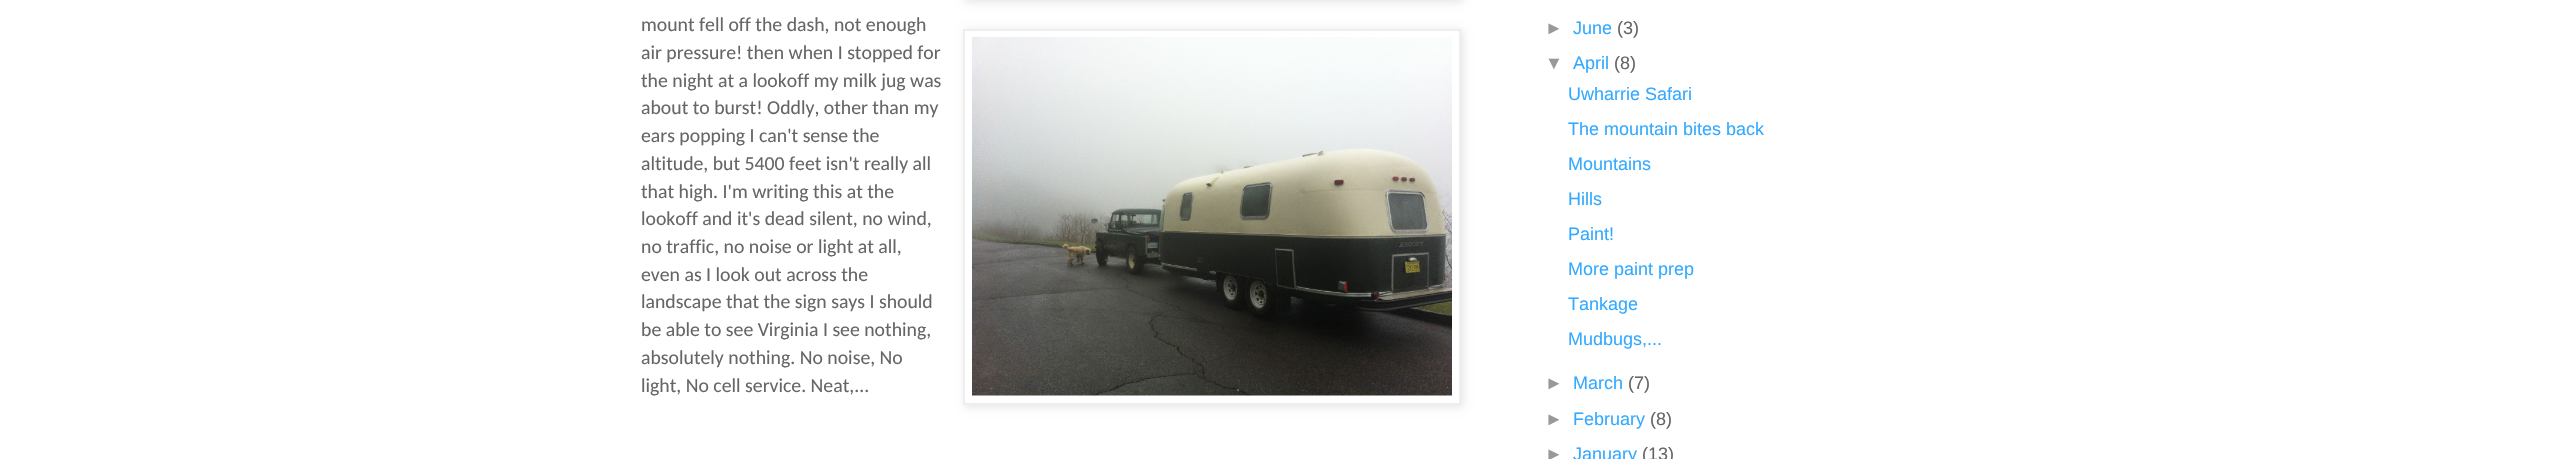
void draw(SkCanvas* c) {
SkPaint p;
p.setAntiAlias(true);
auto F=[&](const char* family, int weight, float size, bool italic = false){SkFontStyle style(weight, SkFontStyle::kNormal_Width,italic ? SkFontStyle::kItalic_Slant : SkFontStyle::kUpright_Slant);SkFont result(fontMgr->matchFamilyStyle(family, style), size);result.setSubpixel(true);return result;};
auto T=[&](const char* s, float x, float y, const SkFont& font){c->drawString(s, x, y, font, p);};
auto I=[&](const char* path, float x, float y, float w, float h){auto image = SkImages::DeferredFromEncodedData(SkData::MakeFromFileName(path));c->drawImageRect(image, SkRect::MakeXYWH(x, y, w, h), SkSamplingOptions());};
auto P=[&](const char* data, bool evenOdd = false){SkPath result = *SkParsePath::FromSVGString(data);if (evenOdd) result.setFillType(SkPathFillType::kEvenOdd);return result;};
c->clear(0xffffffff);
p.setColor(0x1a000000);
p.setMaskFilter(SkMaskFilter::MakeBlur(kNormal_SkBlurStyle, 4));
c->drawRect(SkRect::MakeXYWH(965,-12,498,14),p);
p.setMaskFilter(nullptr);
auto f1 = F("Carlito",400,19.75);
p.setColor(0xff666666);
T("mount fell off the dash, not enough",641,31,f1);
c->save();
c->clipPath(P("M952 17h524v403h-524zm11 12h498v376h-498z",true),true);
p.setColor(0x1a000000);
p.setMaskFilter(SkMaskFilter::MakeBlur(kNormal_SkBlurStyle, 4));
c->drawRect(SkRect::MakeXYWH(965,30,498,377),p);
p.setMaskFilter(nullptr);
c->restore();
p.setStroke(true);
p.setStrokeWidth(2);
p.setColor(0xffeeeeee);
c->drawRect(SkRect::MakeXYWH(964,30,496,374),p);
I("1.png",972,37,480,359);
p.setStroke(false);
p.setColor(0xff666666);
T("air pressure! then when I stopped for",641,59,f1);
T("the night at a lookoff my milk jug was",641,87,f1);
T("about to burst! Oddly, other than my",641,114,f1);
T("ears popping I can't sense the",641,142,f1);
T("altitude, but 5400 feet isn't really all",641,170,f1);
T("that high. I'm writing this at the",641,198,f1);
T("lookoff and it's dead silent, no wind,",641,225,f1);
T("no traffic, no noise or light at all,",641,253,f1);
T("even as I look out across the",641,281,f1);
T("landscape that the sign says I should",641,308,f1);
T("be able to see Virginia I see nothing,",641,336,f1);
T("absolutely nothing. No noise, No",641,364,f1);
T("light, No cell service. Neat,...",641,392,f1);
auto f2 = F("Liberation Sans",400,18);
p.setColor(0xff999999);
T("►",1545,34,f2);
p.setColor(0xff33aaff);
T("June",1573,34,f2);
p.setColor(0xff666666);
T("(3)",1617,34,f2);
p.setColor(0xff999999);
T("▼",1545,69,f2);
p.setColor(0xff33aaff);
T("April",1573,69,f2);
p.setColor(0xff666666);
T("(8)",1614,69,f2);
p.setColor(0xff33aaff);
T("Uwharrie Safari",1568,100,f2);
T("The mountain bites back",1568,135,f2);
T("Mountains",1568,170,f2);
T("Hills",1568,205,f2);
T("Paint!",1568,240,f2);
T("More paint prep",1568,275,f2);
T("Tankage",1568,310,f2);
T("Mudbugs,...",1568,345,f2);
p.setColor(0xff999999);
T("►",1545,389,f2);
p.setColor(0xff33aaff);
T("March",1573,389,f2);
p.setColor(0xff666666);
T("(7)",1628,389,f2);
p.setColor(0xff999999);
T("►",1545,425,f2);
p.setColor(0xff33aaff);
T("February",1573,425,f2);
p.setColor(0xff666666);
T("(8)",1650,425,f2);
p.setColor(0xff999999);
T("►",1545,460,f2);
p.setColor(0xff33aaff);
T("January",1573,460,f2);
p.setColor(0xff666666);
T("(13)",1642,460,f2);
}
